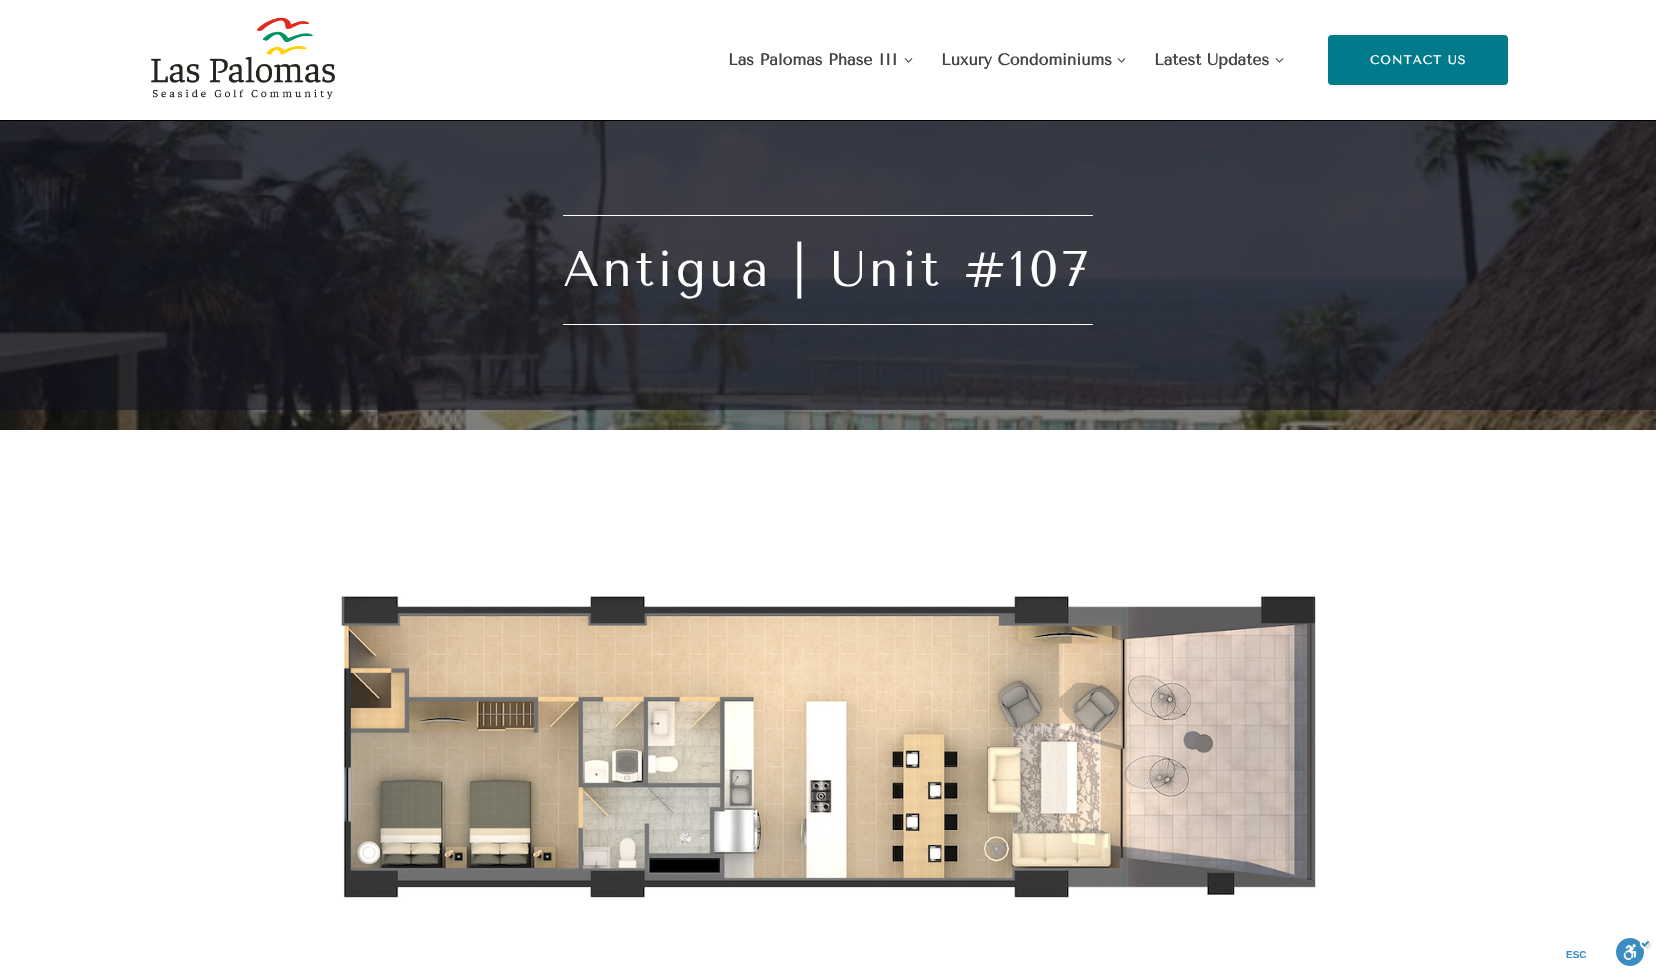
void draw(SkCanvas* c) {
SkPaint p;
p.setAntiAlias(true);
auto F=[&](const char* family, int weight, float size, bool italic = false){SkFontStyle style(weight, SkFontStyle::kNormal_Width,italic ? SkFontStyle::kItalic_Slant : SkFontStyle::kUpright_Slant);SkFont result(fontMgr->matchFamilyStyle(family, style), size);result.setSubpixel(true);return result;};
auto T=[&](const char* s, float x, float y, const SkFont& font){c->drawString(s, x, y, font, p);};
auto L=[&](const char* s, float x, float y, const SkFont& font, const SkPaint& ink, float letter, float word){std::vector<SkGlyphID> glyphs(font.countText(s, strlen(s), SkTextEncoding::kUTF8));std::vector<float> xs(glyphs.size());font.textToGlyphs(s, strlen(s), SkTextEncoding::kUTF8, glyphs);font.getXPos(glyphs, xs, x);float extra = 0;for (size_t i = 0; i < glyphs.size(); i++) {xs[i] += extra;extra += letter + word * (glyphs[i] == font.unicharToGlyph(' '));}c->drawTextBlob(SkTextBlob::MakeFromPosHGlyphs(glyphs, xs, y, font), 0, 0, ink);};
auto R=[&](float x, float y, float w, float h){c->drawRect(SkRect::MakeXYWH(x, y, w, h), p);};
auto Q=[&](float x, float y, float w, float h, float radius){c->drawRoundRect(SkRect::MakeXYWH(x, y, w, h), radius, radius, p);};
auto I=[&](const char* path, float x, float y, float w, float h){auto image = SkImages::DeferredFromEncodedData(SkData::MakeFromFileName(path));c->drawImageRect(image, SkRect::MakeXYWH(x, y, w, h), SkSamplingOptions());};
c->clear(0xffffffff);
p.setColor(0xff000000);
R(0,120,1656,1);
I("1.png",151,17,184,82);
auto f1 = F("Tenor Sans",700,16);
p.setColor(0xff444444);
T("Las Palomas Phase III",728,65,f1);
I("2.png",904,58,9,5);
T("Luxury Condominiums",941,65,f1);
I("2.png",1117,58,9,5);
T("Latest Updates",1154,65,f1);
I("2.png",1275,58,9,5);
p.setColor(0xff017b8c);
Q(1328,35,180,50,4);
auto f2 = F("Tenor Sans",700,12);
p.setColor(0xffffffff);
L("CONTACT US",1370,64,f2,p,1.25,0);
I("3.png",0,121,1656,309);
R(563,215,530,1);
R(563,324,530,1);
auto f3 = F("Tenor Sans",400,50);
L("Antigua | Unit #107",563,286,f3,p,3.25,0);
I("4.png",341,596,975,302);
auto f4 = F("Liberation Sans",700,10);
p.setColor(0xff3a8dc2);
T("ESC",1566,958,f4);
I("5.png",1616,938,35,28);
}
